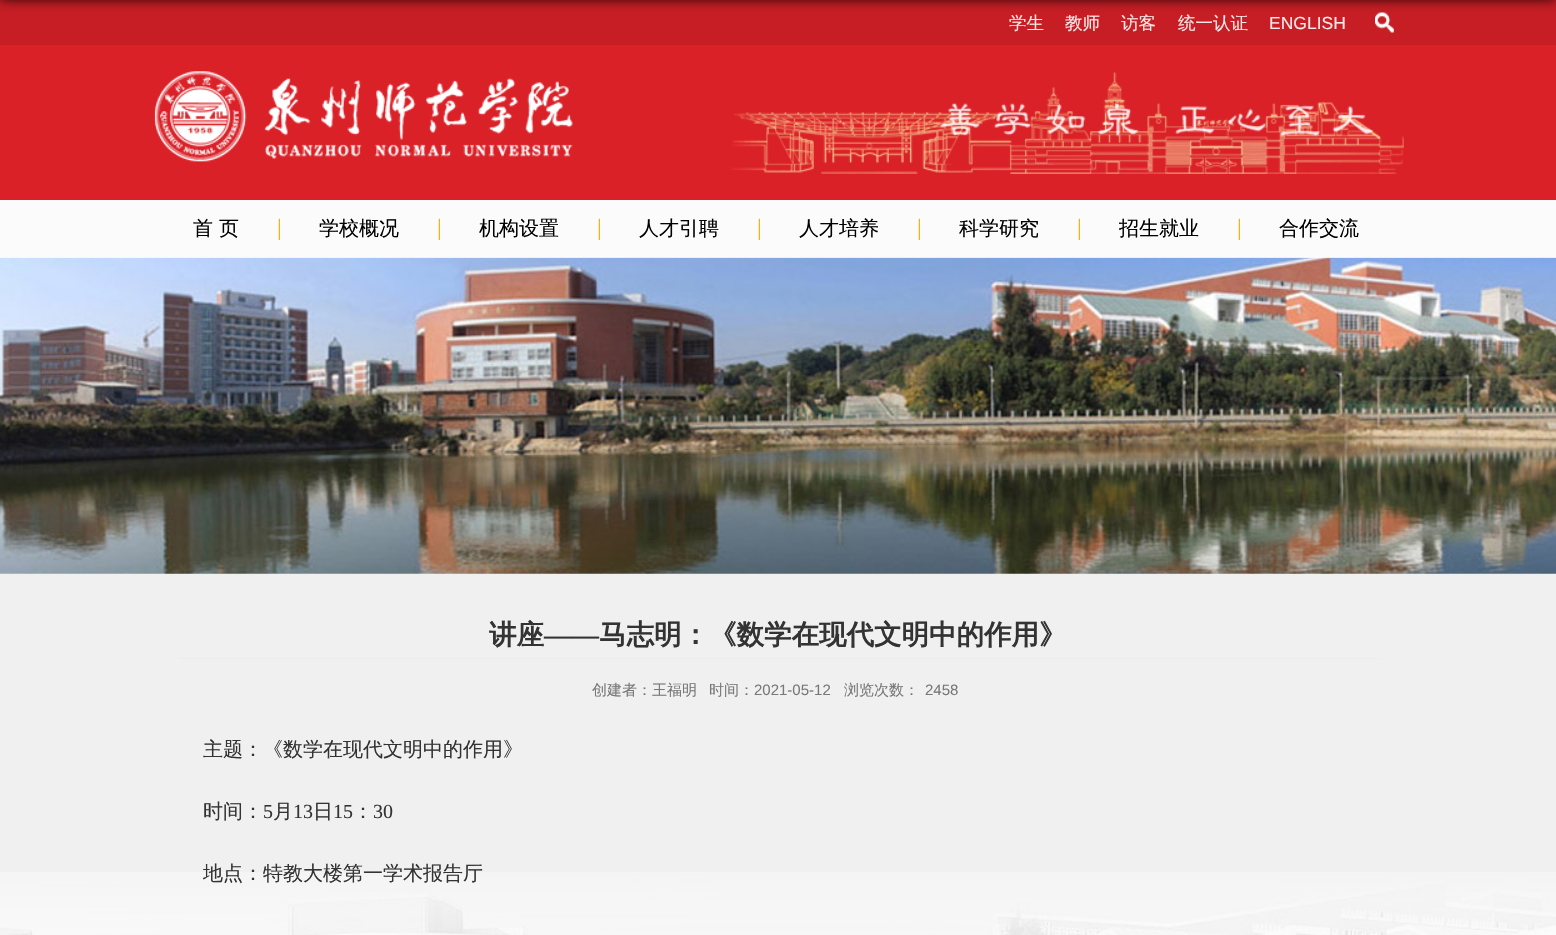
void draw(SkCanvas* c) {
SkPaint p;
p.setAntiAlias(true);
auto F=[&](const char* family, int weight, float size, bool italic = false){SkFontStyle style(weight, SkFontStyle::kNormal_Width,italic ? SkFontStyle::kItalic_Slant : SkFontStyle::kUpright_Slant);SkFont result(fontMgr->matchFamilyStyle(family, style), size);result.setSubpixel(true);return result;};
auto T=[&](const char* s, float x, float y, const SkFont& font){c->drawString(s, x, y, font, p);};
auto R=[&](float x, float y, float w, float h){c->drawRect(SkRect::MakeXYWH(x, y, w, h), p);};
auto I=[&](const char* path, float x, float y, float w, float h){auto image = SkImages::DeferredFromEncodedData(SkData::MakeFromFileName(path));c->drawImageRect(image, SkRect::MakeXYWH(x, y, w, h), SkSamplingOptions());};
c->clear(0xfff0f0f0);
I("1.png",0,872,1556,63);
p.setColor(0xffc61e24);
R(0,0,1556,45);
I("3.png",1375,13,19,20);
I("2.png",1375,12,19,20);
p.setColor(0xcc000000);
p.setMaskFilter(SkMaskFilter::MakeBlur(kNormal_SkBlurStyle, 6));
c->drawRect(SkRect::MakeXYWH(0,-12,1556,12),p);
p.setMaskFilter(nullptr);
auto f1 = F("WenQuanYi Zen Hei",500,17.5);
p.setColor(0xfff9e9e9);
T("学生",1009,29,f1);
T("教师",1065,29,f1);
T("访客",1121,29,f1);
T("统一认证",1178,29,f1);
auto f2 = F("Liberation Sans",400,17.5);
T("ENGLISH",1269,29,f2);
p.setColor(0xffda2128);
R(0,45,1556,155);
I("4.png",731,72,673,102);
I("5.png",154,71,419,91);
I("6.png",940,103,433,34);
I("8.png",0,257,1556,317);
p.setColor(0xb3ffffff);
R(0,200,1556,58);
auto f3 = F("WenQuanYi Zen Hei",500,20);
p.setColor(0xff000000);
T("首",193,235,f3);
T("页",219,235,f3);
I("7.png",278,218,2,22);
T("学校概况",319,235,f3);
I("7.png",438,218,2,22);
T("机构设置",479,235,f3);
I("7.png",598,218,2,22);
T("人才引聘",639,235,f3);
I("7.png",758,218,2,22);
T("人才培养",799,235,f3);
I("7.png",918,218,2,22);
T("科学研究",959,235,f3);
I("7.png",1078,218,2,22);
T("招生就业",1119,235,f3);
I("7.png",1238,218,2,22);
T("合作交流",1279,235,f3);
auto f4 = F("WenQuanYi Zen Hei",700,27.5);
p.setColor(0xff333333);
T("讲座",489,644,f4);
auto f5 = F("Liberation Serif",700,27.5);
T("——",544,644,f5);
T("马志明：《数学在现代文明中的作用》",599,644,f4);
p.setColor(0xffececec);
R(179,658,1200,1);
auto f6 = F("WenQuanYi Zen Hei",500,15);
p.setColor(0xff787878);
T("创建者：王福明",592,695,f6);
T("时间：",709,695,f6);
auto f7 = F("Liberation Sans",400,15);
T("2021-05-12",754,695,f7);
T("浏览次数：",844,695,f6);
T("2458",925,695,f7);
p.setColor(0xff333333);
T("主题：《数学在现代文明中的作用》",203,756,f3);
T("时间：",203,818,f3);
auto f8 = F("Liberation Serif",400,20);
T("5",263,818,f8);
T("月",273,818,f3);
T("13",293,818,f8);
T("日",313,818,f3);
T("15",333,818,f8);
T("：",353,818,f3);
T("30",373,818,f8);
T("地点：特教大楼第一学术报告厅",203,880,f3);
}
